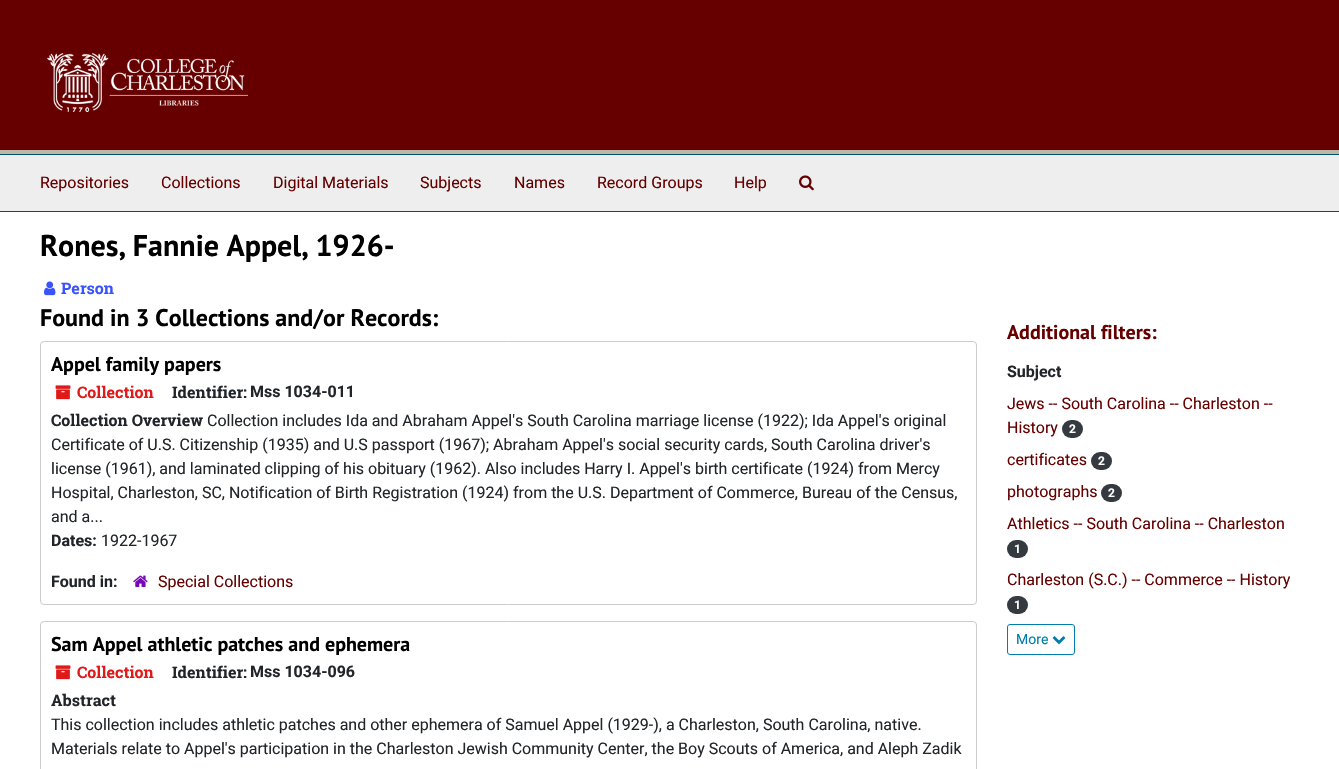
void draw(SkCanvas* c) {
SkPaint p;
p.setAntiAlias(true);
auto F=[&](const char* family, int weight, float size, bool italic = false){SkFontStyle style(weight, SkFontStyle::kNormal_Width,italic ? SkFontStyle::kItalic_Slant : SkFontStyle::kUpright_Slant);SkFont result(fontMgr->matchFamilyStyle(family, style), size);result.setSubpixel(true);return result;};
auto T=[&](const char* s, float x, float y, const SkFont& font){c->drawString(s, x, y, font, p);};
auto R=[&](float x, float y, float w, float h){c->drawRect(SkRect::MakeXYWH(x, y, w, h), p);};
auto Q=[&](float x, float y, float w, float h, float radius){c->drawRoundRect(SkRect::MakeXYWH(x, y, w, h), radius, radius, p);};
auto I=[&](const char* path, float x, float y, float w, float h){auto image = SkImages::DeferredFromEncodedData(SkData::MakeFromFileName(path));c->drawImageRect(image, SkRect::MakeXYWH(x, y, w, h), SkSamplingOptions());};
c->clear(0xffffffff);
p.setColor(0xff660000);
R(0,0,1339,150);
p.setColor(0xffbeb9a6);
R(0,150,1339,4);
I("1.png",47,53,201,59);
p.setColor(0xffeeeeee);
R(0,155,1339,56);
p.setColor(0xff004f6f);
R(0,154,1339,1);
R(0,211,1339,1);
auto f1 = F("Roboto",400,16);
p.setColor(0xff660000);
T("Repositories",40,188,f1);
T("Collections",161,188,f1);
T("Digital Materials",273,188,f1);
T("Subjects",420,188,f1);
T("Names",514,188,f1);
T("Record Groups",597,188,f1);
T("Help",734,188,f1);
I("2.png",799,175,15,16);
auto f2 = F("PT Sans",700,30);
p.setColor(0xff000000);
T("Rones, Fannie Appel, 1926-",40,256,f2);
I("3.png",44,281,12,15);
auto f3 = F("Roboto Slab",700,16);
p.setColor(0xff3b52ff);
T("Person",61,294,f3);
auto f4 = F("PT Sans",700,24);
p.setColor(0xff000000);
T("Found in 3 Collections and/or Records:",40,326,f4);
p.setStroke(true);
p.setStrokeWidth(1);
p.setColor(0xffcccccc);
c->drawRoundRect(SkRect::MakeXYWH(40.5,341.5,936,263),3.5,3.5,p);
auto f5 = F("PT Sans",700,20);
p.setStroke(false);
p.setColor(0xff000000);
T("Appel family papers",51,371,f5);
I("4.png",55,385,16,15);
p.setColor(0xffe01919);
T("Collection",77,398,f3);
p.setColor(0xff212529);
T("Identifier:",172,398,f3);
auto f6 = F("Roboto",700,16);
T("Mss 1034-011",250,397,f6);
T("Collection Overview",51,426,f3);
T("Collection includes Ida and Abraham Appel's South Carolina marriage license (1922); Ida Appel's original",207,426,f1);
T("Certificate of U.S. Citizenship (1935) and U.S passport (1967); Abraham Appel's social security cards, South Carolina driver's",51,450,f1);
T("license (1961), and laminated clipping of his obituary (1962). Also includes Harry I. Appel's birth certificate (1924) from Mercy",51,474,f1);
T("Hospital, Charleston, SC, Notification of Birth Registration (1924) from the U.S. Department of Commerce, Bureau of the Census,",51,498,f1);
T("and a...",51,522,f1);
T("Dates:",51,546,f6);
T("1922-1967",101,546,f1);
T("Found in:",51,587,f6);
I("5.png",133,575,15,12);
p.setColor(0xff660000);
T("Special Collections",158,587,f1);
p.setStroke(true);
p.setColor(0xffcccccc);
c->drawRoundRect(SkRect::MakeXYWH(40.5,621.5,936,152),3.5,3.5,p);
p.setStroke(false);
p.setColor(0xff000000);
T("Sam Appel athletic patches and ephemera",51,651,f5);
I("4.png",55,665,16,15);
p.setColor(0xffe01919);
T("Collection",77,678,f3);
p.setColor(0xff212529);
T("Identifier:",172,678,f3);
T("Mss 1034-096",250,677,f6);
T("Abstract",51,706,f3);
T("This collection includes athletic patches and other ephemera of Samuel Appel (1929-), a Charleston, South Carolina, native.",51,730,f1);
T("Materials relate to Appel's participation in the Charleston Jewish Community Center, the Boy Scouts of America, and Aleph Zadik",51,754,f1);
p.setColor(0xff660000);
T("Additional filters:",1007,339,f5);
p.setColor(0xff212529);
T("Subject",1007,377,f6);
p.setColor(0xff660000);
T("Jews -- South Carolina -- Charleston --",1007,409,f1);
T("History",1007,433,f1);
p.setColor(0xff343a40);
Q(1062,420,21,18,9);
auto f7 = F("Roboto",700,12);
p.setColor(0xffffffff);
T("2",1069,433,f7);
p.setColor(0xff660000);
T("certificates",1007,465,f1);
p.setColor(0xff343a40);
Q(1091,452,21,18,9);
p.setColor(0xffffffff);
T("2",1098,465,f7);
p.setColor(0xff660000);
T("photographs",1007,497,f1);
p.setColor(0xff343a40);
Q(1101,484,21,18,9);
p.setColor(0xffffffff);
T("2",1108,497,f7);
p.setColor(0xff660000);
T("Athletics -- South Carolina -- Charleston",1007,529,f1);
p.setColor(0xff343a40);
Q(1007,540,21,18,9);
p.setColor(0xffffffff);
T("1",1014,553,f7);
p.setColor(0xff660000);
T("Charleston (S.C.) -- Commerce -- History",1007,585,f1);
p.setColor(0xff343a40);
Q(1007,596,21,18,9);
p.setColor(0xffffffff);
T("1",1014,609,f7);
p.setStroke(true);
p.setColor(0xff007cad);
c->drawRoundRect(SkRect::MakeXYWH(1007.5,624.5,67,30),2.5,2.5,p);
auto f8 = F("Roboto",400,14);
p.setStroke(false);
T("More",1016,644,f8);
I("6.png",1052,636,14,9);
}
